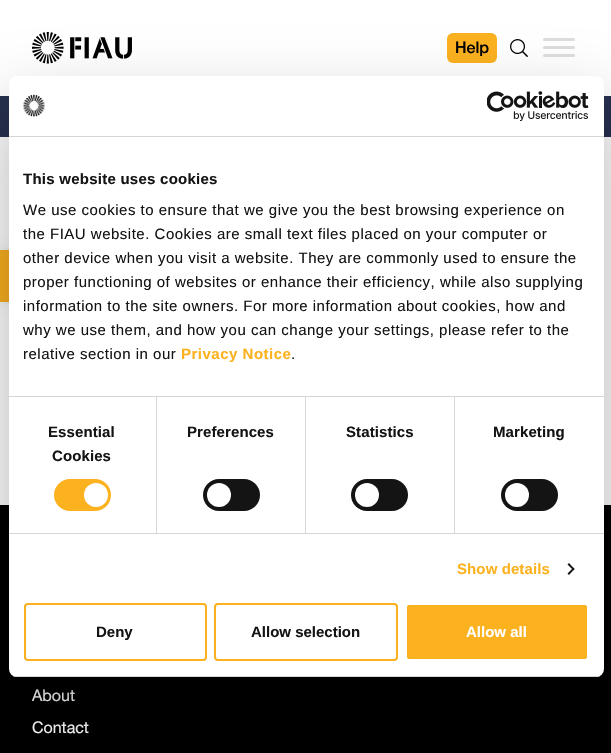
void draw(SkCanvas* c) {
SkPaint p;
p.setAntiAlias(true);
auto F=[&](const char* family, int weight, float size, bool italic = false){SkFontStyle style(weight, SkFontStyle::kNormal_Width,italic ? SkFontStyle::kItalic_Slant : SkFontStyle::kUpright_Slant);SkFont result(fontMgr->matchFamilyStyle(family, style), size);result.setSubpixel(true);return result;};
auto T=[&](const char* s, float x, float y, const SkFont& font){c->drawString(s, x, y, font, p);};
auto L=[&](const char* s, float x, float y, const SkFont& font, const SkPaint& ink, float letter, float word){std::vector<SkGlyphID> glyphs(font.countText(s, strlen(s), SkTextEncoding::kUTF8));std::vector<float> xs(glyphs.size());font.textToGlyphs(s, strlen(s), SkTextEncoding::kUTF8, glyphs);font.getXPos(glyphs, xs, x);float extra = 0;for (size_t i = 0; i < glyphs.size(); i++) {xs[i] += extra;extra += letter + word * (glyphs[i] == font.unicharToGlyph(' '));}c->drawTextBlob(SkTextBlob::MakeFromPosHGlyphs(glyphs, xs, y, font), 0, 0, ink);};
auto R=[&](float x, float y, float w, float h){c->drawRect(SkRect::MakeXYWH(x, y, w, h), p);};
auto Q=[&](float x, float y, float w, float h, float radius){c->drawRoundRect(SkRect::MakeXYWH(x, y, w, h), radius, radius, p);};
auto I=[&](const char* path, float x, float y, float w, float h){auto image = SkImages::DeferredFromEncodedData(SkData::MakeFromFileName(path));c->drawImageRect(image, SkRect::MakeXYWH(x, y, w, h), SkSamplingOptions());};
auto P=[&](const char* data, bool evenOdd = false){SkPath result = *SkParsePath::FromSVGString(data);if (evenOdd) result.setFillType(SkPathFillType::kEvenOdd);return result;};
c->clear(0xffffffff);
I("1.png",32,32,100,32);
p.setColor(0xfffcb11f);
Q(447,33,50,30,6);
auto f1 = F("Helvetica Neue",500,16);
p.setColor(0xff000000);
T("Help",455,53,f1);
I("2.png",510,39,18,18);
p.setColor(0xffdddddd);
Q(543,38,32,3,1.5);
Q(543,46,32,3,1.5);
Q(543,54,32,3,1.5);
p.setColor(0xff263150);
R(0,96,611,41);
p.setColor(0xff000000);
R(0,505,611,248);
auto f2 = F("Helvetica Neue",400,16);
p.setColor(0xffffffff);
T("About",32,701,f2);
T("Contact",32,733,f2);
p.setColor(0x1a000000);
p.setMaskFilter(SkMaskFilter::MakeBlur(kNormal_SkBlurStyle, 5));
c->drawRect(SkRect::MakeXYWH(0,250,52,52),p);
p.setMaskFilter(nullptr);
p.setColor(0xfffcb11f);
R(0,250,9,52);
p.setColor(0x4d000000);
p.setMaskFilter(SkMaskFilter::MakeBlur(kNormal_SkBlurStyle, 34));
c->drawRoundRect(SkRect::MakeXYWH(9,108,595,601),8,8,p);
p.setMaskFilter(nullptr);
p.setColor(0xffffffff);
Q(9,76,595,601,8);
p.setColor(0xffd6d6d6);
R(9,136,595,1);
I("3.png",23,94,22,23);
I("4.png",487,91,102,30);
R(9,396,595,1);
auto f3 = F("Liberation Sans",700,15);
p.setColor(0xff141414);
L("This website uses cookies",23,184,f3,p,.25,0);
auto f4 = F("Liberation Sans",400,15);
L("We use cookies to ensure that we give you the best browsing experience on",23,215,f4,p,.5,0);
L("the FIAU website. Cookies are small text files placed on your computer or",23,239,f4,p,.5,0);
L("other device when you visit a website. They are commonly used to ensure the",23,263,f4,p,.5,0);
L("proper functioning of websites or enhance their efficiency, while also supplying",23,287,f4,p,.5,0);
L("information to the site owners. For more information about cookies, how and",23,311,f4,p,.5,0);
L("why we use them, and how you can change your settings, please refer to the",23,335,f4,p,.5,0);
L("relative section in our",23,359,f4,p,.5,0);
p.setColor(0xfffcb11f);
L("Privacy Notice",181,359,f3,p,.5,0);
p.setColor(0xff141414);
L(".",291,359,f4,p,.5,0);
p.setColor(0xffd6d6d6);
R(9,533,595,1);
R(156,397,1,136);
p.setColor(0xff141414);
L("Essential",48,437,f3,p,.1,0);
L("Cookies",52,461,f3,p,.1,0);
p.setColor(0xfffcb11f);
Q(54,479,57,32,16);
p.setColor(0xffffffff);
c->drawCircle(96,495,12,p);
p.setColor(0xffd6d6d6);
R(305,397,1,136);
p.setColor(0xff141414);
L("Preferences",187,437,f3,p,.1,0);
Q(203,479,57,32,16);
p.setColor(0xffffffff);
c->drawCircle(219,495,12,p);
p.setColor(0xffd6d6d6);
R(454,397,1,136);
p.setColor(0xff141414);
L("Statistics",346,437,f3,p,.1,0);
Q(351,479,57,32,16);
p.setColor(0xffffffff);
c->drawCircle(367,495,12,p);
p.setColor(0xff141414);
L("Marketing",493,437,f3,p,.1,0);
Q(501,479,57,32,16);
p.setColor(0xffffffff);
c->drawCircle(517,495,12,p);
p.setColor(0xfffcb11f);
L("Show details",457,574,f3,p,.1,0);
p.setColor(0xff141414);
c->drawPath(P("M569 563l5.5 6l-1 1.5l-6-6z"),p);
c->drawPath(P("M573.5 567.5l1 1.5l-5.5 6l-1.5-1.5z"),p);
c->save();
c->clipPath(P("M17 76h579c4.5 0 8 3.5 8 8v585c0 4.5-3.5 8-8 8h-579c-4.5 0-8-3.5-8-8v-585c0-4.5 3.5-8 8-8z"),true);
p.setColor(0xffd6d6d6);
R(9,676,595,1);
c->restore();
p.setStroke(true);
p.setStrokeWidth(2);
p.setColor(0xfffcb11f);
c->drawRoundRect(SkRect::MakeXYWH(25,604,181,56),3,3,p);
p.setStroke(false);
p.setColor(0xff141414);
T("Deny",96,637,f3);
p.setStroke(true);
p.setColor(0xfffcb11f);
c->drawRoundRect(SkRect::MakeXYWH(215,604,182,56),3,3,p);
p.setStroke(false);
p.setColor(0xff141414);
T("Allow selection",251,637,f3);
p.setColor(0xfffcb11f);
c->drawRoundRect(SkRect::MakeXYWH(406,604,182,56),3,3,p);
p.setStroke(true);
p.setColor(0xffffffff);
c->drawRoundRect(SkRect::MakeXYWH(406,604,182,56),3,3,p);
p.setStroke(false);
T("Allow all",466,637,f3);
}
